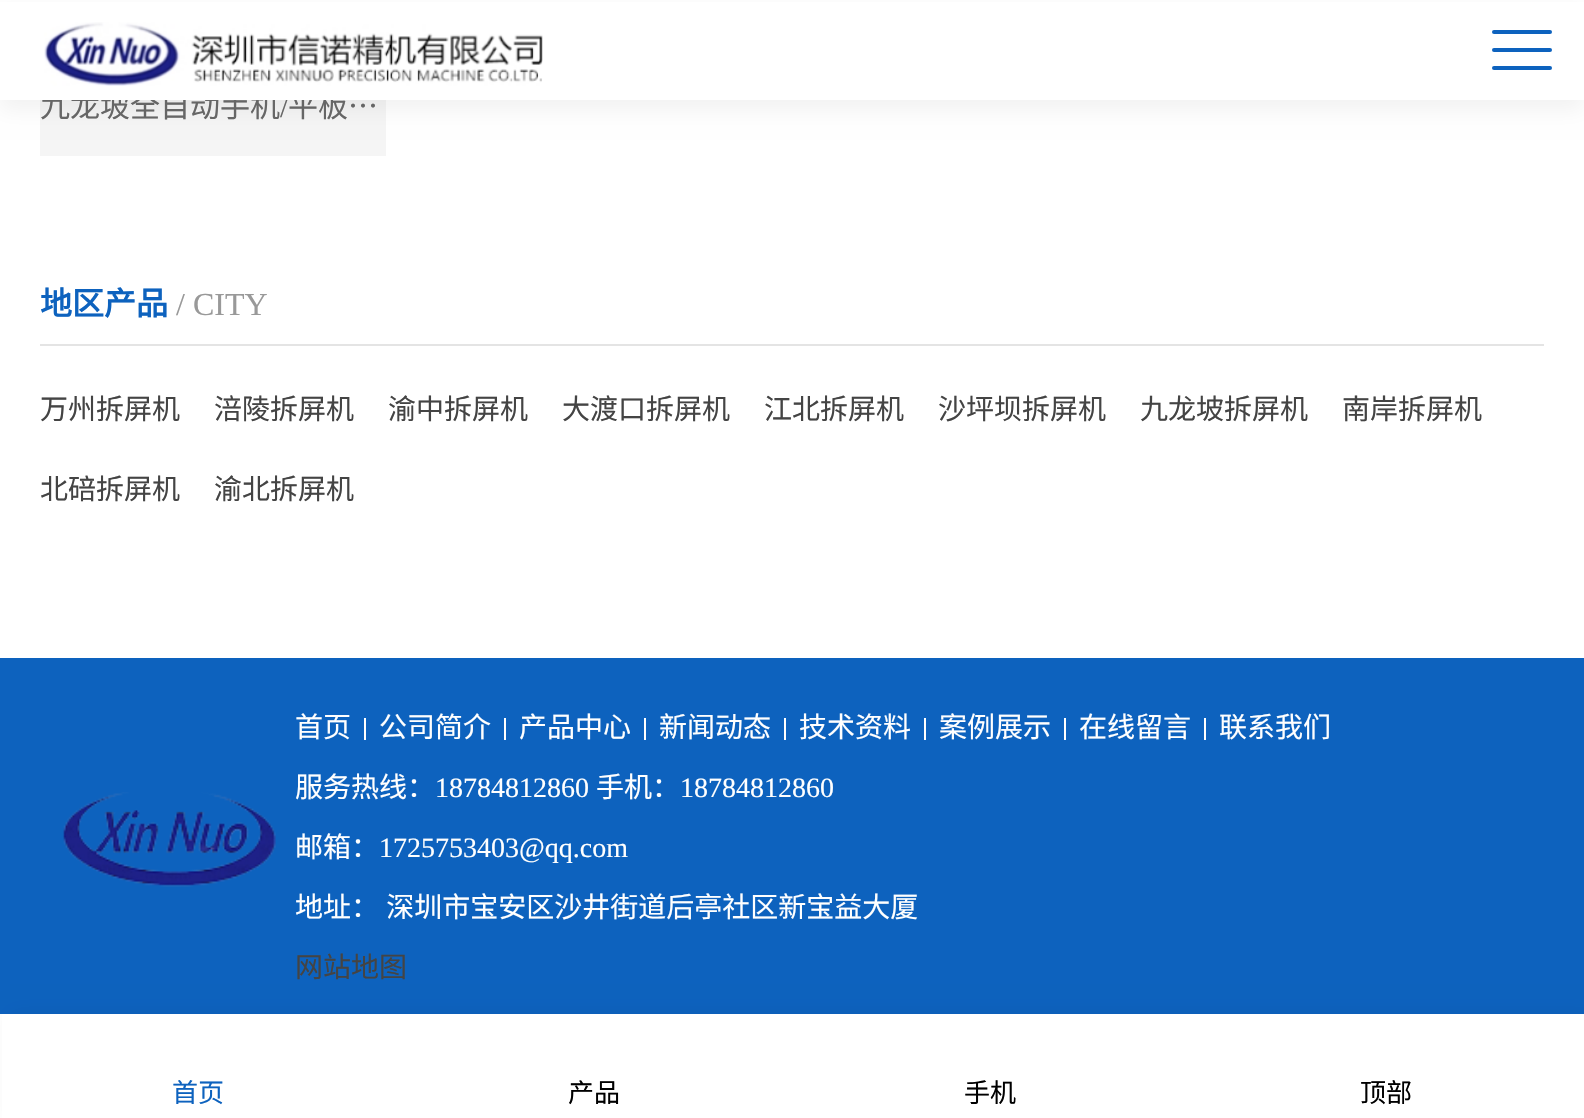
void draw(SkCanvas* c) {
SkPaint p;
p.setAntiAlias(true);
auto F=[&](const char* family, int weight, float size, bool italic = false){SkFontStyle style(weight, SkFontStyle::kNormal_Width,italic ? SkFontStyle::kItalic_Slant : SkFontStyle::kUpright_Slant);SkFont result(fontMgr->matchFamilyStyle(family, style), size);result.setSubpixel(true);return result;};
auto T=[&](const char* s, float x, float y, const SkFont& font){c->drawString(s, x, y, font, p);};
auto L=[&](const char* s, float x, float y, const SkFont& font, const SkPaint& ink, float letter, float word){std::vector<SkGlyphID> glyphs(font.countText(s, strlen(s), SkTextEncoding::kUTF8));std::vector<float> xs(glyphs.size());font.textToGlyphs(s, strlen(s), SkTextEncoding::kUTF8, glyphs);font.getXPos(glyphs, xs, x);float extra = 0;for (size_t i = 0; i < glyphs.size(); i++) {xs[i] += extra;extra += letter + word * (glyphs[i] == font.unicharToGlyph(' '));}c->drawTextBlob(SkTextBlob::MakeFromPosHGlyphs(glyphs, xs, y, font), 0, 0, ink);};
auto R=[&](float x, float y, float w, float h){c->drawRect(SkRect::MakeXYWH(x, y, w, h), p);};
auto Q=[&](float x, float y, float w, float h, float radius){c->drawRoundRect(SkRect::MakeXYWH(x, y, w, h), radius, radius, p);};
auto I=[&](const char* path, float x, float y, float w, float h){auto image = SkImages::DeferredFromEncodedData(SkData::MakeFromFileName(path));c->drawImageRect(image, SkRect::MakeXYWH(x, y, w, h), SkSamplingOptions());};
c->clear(0xffffffff);
p.setColor(0xfff5f5f5);
R(40,100,346,56);
p.setColor(0x0d000000);
p.setMaskFilter(SkMaskFilter::MakeBlur(kNormal_SkBlurStyle, 10));
c->drawRect(SkRect::MakeXYWH(0,10,1584,100),p);
p.setMaskFilter(nullptr);
auto f1 = F("Noto Sans CJK SC",400,30);
p.setColor(0xff666666);
T("九龙坡全自动手机",40,117,f1);
auto f2 = F("Liberation Serif",400,30);
T("/",280,117,f2);
T("平板…",288,117,f1);
p.setColor(0xffffffff);
R(0,2,1584,98);
I("1.png",44,22,499,64);
p.setColor(0xff0d62be);
Q(1492,30,60,4,2);
Q(1492,48,60,4,2);
Q(1492,66,60,4,2);
p.setColor(0xffe4e4e4);
R(40,344,1504,2);
auto f3 = F("Noto Sans CJK SC",700,32);
p.setColor(0xff0d62be);
T("地区产品",40,315,f3);
auto f4 = F("Liberation Serif",400,32);
p.setColor(0xff999999);
T("/ CITY",176,315,f4);
auto f5 = F("Noto Sans CJK SC",400,28);
p.setColor(0xff444444);
T("万州拆屏机",40,419,f5);
T("涪陵拆屏机",214,419,f5);
T("渝中拆屏机",388,419,f5);
T("大渡口拆屏机",562,419,f5);
T("江北拆屏机",764,419,f5);
T("沙坪坝拆屏机",938,419,f5);
T("九龙坡拆屏机",1140,419,f5);
T("南岸拆屏机",1342,419,f5);
T("北碚拆屏机",40,499,f5);
T("渝北拆屏机",214,499,f5);
p.setColor(0xff0d62be);
R(0,658,1584,356);
I("2.png",63,792,213,95);
p.setColor(0xffffffff);
T("首页",295,737,f5);
R(364,718,2,22);
T("公司简介",379,737,f5);
R(504,718,2,22);
T("产品中心",519,737,f5);
R(644,718,2,22);
T("新闻动态",659,737,f5);
R(784,718,2,22);
T("技术资料",799,737,f5);
R(924,718,2,22);
T("案例展示",939,737,f5);
R(1064,718,2,22);
T("在线留言",1079,737,f5);
R(1204,718,2,22);
T("联系我们",1219,737,f5);
T("服务热线：",295,797,f5);
auto f6 = F("Liberation Serif",400,28);
T("18784812860",435,797,f6);
T("手机：",596,797,f5);
T("18784812860",680,797,f6);
T("邮箱：",295,857,f5);
T("1725753403@qq.com",379,857,f6);
L("地址： 深圳市宝安区沙井街道后亭社区新宝益大厦",295,917,f5,p,0,1);
p.setColor(0xff444444);
T("网站地图",295,977,f5);
p.setColor(0x0d000000);
p.setMaskFilter(SkMaskFilter::MakeBlur(kNormal_SkBlurStyle, 10));
c->drawRect(SkRect::MakeXYWH(10,1014,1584,104),p);
p.setMaskFilter(nullptr);
p.setColor(0xffffffff);
R(2,1014,1582,104);
auto f7 = F("Noto Sans CJK SC",400,26);
p.setColor(0xff0d62be);
T("首页",172,1102,f7);
p.setColor(0xff000000);
T("产品",568,1102,f7);
T("手机",964,1102,f7);
T("顶部",1360,1102,f7);
}
